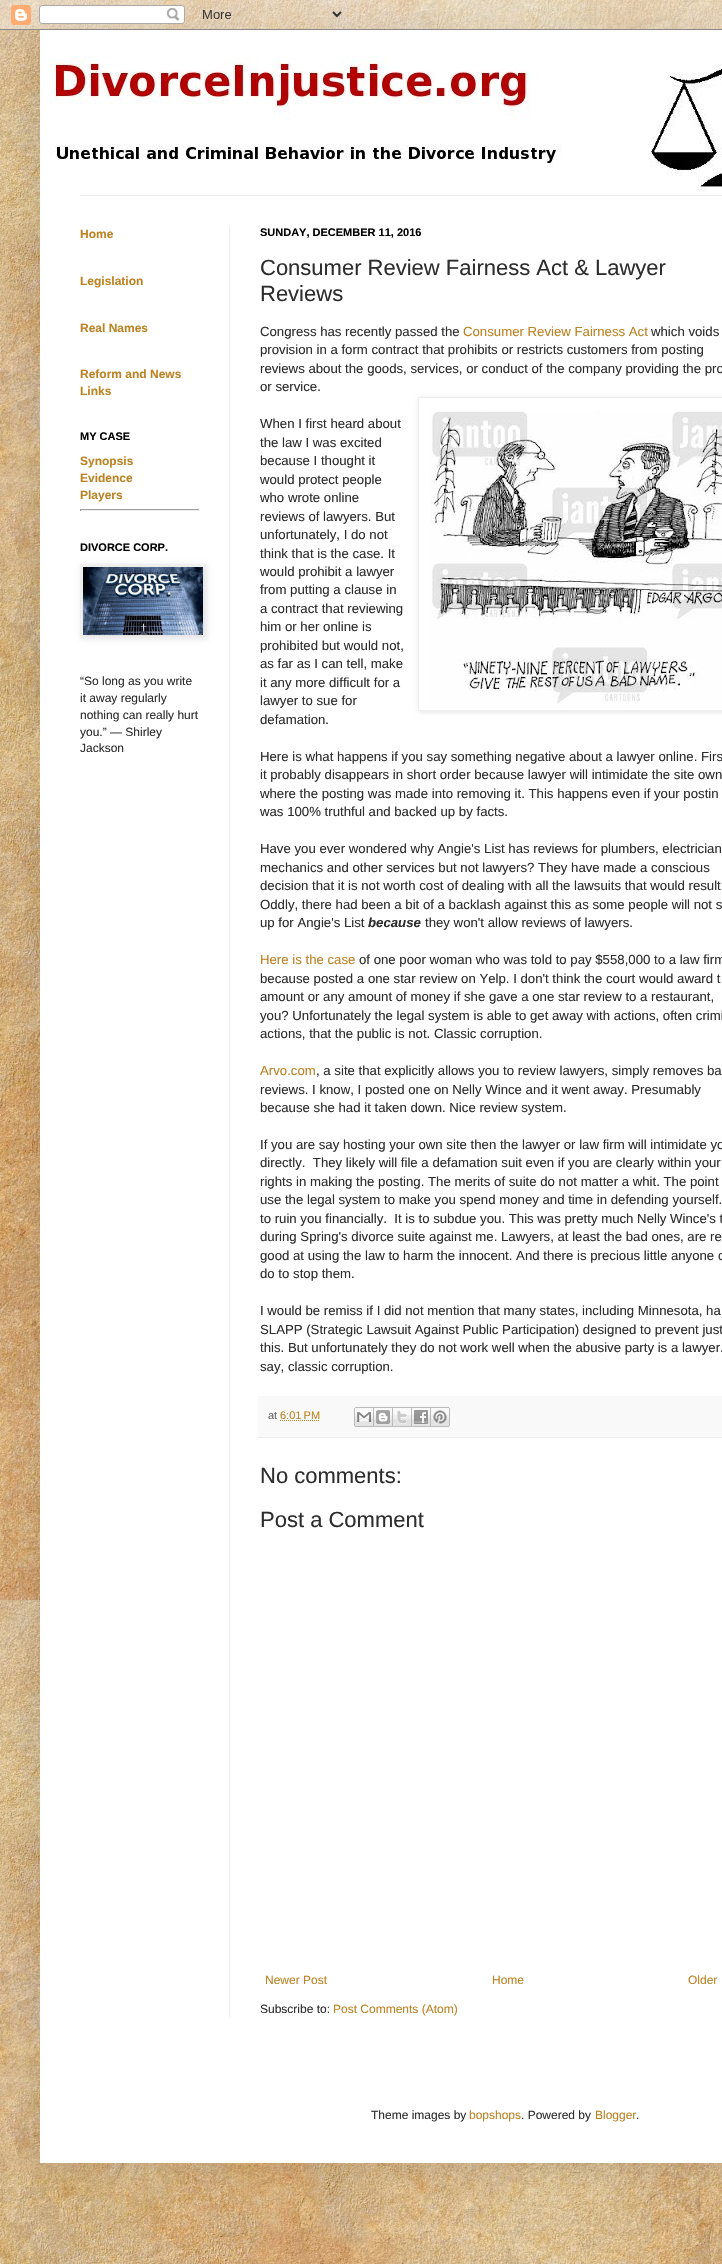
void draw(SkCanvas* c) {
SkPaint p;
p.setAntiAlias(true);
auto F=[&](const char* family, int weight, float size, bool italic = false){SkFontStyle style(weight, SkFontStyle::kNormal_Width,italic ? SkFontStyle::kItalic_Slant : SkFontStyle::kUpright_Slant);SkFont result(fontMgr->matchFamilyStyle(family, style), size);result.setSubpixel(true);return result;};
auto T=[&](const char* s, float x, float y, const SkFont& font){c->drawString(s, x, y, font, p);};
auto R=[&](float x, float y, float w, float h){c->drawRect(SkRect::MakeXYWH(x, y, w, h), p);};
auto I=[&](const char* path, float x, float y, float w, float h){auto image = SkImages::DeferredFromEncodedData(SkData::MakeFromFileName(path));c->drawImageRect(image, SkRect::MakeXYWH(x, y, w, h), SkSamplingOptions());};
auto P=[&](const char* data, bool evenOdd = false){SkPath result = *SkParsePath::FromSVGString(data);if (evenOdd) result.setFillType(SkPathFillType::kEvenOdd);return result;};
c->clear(0xffffffff);
I("1.png",0,400,722,1864);
I("2.png",0,0,722,400);
p.setColor(0x26000000);
p.setMaskFilter(SkMaskFilter::MakeBlur(kNormal_SkBlurStyle, 20));
c->drawRect(SkRect::MakeXYWH(40,30,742,2133),p);
p.setMaskFilter(nullptr);
I("3.png",0,0,722,30);
p.setColor(0xffffffff);
R(40,30,682,2133);
I("4.png",50,55,672,137);
p.setColor(0xffe9e9e9);
R(80,195,642,1);
p.setColor(0xffeeeeee);
R(229,226,1,1791);
auto f1 = F("Liberation Sans",700,12);
p.setColor(0xffbd8222);
T("Home",80,238,f1);
T("Legislation",80,285,f1);
T("Real Names",80,332,f1);
T("Reform and News",80,378,f1);
T("Links",80,395,f1);
auto f2 = F("Liberation Sans",700,11);
p.setColor(0xff000000);
T("MY CASE",80,440,f2);
p.setColor(0xffbd8222);
T("Synopsis",80,465,f1);
T("Evidence",80,482,f1);
T("Players",80,499,f1);
p.setColor(0xff9f9f9f);
R(80,509,120,1);
p.setColor(0xffeeeeee);
R(199,509,1,2);
R(80,510,120,1);
p.setColor(0xff9f9f9f);
R(80,509,1,2);
p.setColor(0xff000000);
T("DIVORCE CORP.",80,551,f2);
p.setColor(0x1a000000);
p.setMaskFilter(SkMaskFilter::MakeBlur(kNormal_SkBlurStyle, 2.5));
c->drawRect(SkRect::MakeXYWH(81,565,126,74),p);
p.setMaskFilter(nullptr);
p.setStroke(true);
p.setStrokeWidth(1);
p.setColor(0xffeeeeee);
c->drawRect(SkRect::MakeXYWH(80.5,564.5,125,73),p);
I("5.png",83,567,120,68);
auto f3 = F("Liberation Sans",400,12);
p.setStroke(false);
p.setColor(0xff2d2d2d);
T("“So long as you write",80,685,f3);
T("it away regularly",80,702,f3);
T("nothing can really hurt",80,719,f3);
T("you.” ― Shirley",80,736,f3);
T("Jackson",80,752,f3);
p.setColor(0xff000000);
T("SUNDAY, DECEMBER 11, 2016",260,236,f2);
auto f4 = F("Liberation Sans",400,22);
p.setColor(0xff2d2d2d);
T("Consumer Review Fairness Act & Lawyer",260,275,f4);
T("Reviews",260,301,f4);
auto f5 = F("Liberation Sans",400,13.2);
T("Congress has recently passed the",260,336,f5);
p.setColor(0xffbd8222);
T("Consumer Review Fairness Act",463,336,f5);
p.setColor(0xff2d2d2d);
T("which voids",651,336,f5);
T("provision in a form contract that prohibits or restricts customers from posting",260,354,f5);
T("reviews about the goods, services, or conduct of the company providing the pro",260,373,f5);
T("or service.",260,391,f5);
T("When I first heard about",260,428,f5);
c->save();
c->clipPath(P("M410 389h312v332h-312zm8 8h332v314h-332z",true),true);
p.setColor(0x1a000000);
p.setMaskFilter(SkMaskFilter::MakeBlur(kNormal_SkBlurStyle, 2.5));
c->drawRect(SkRect::MakeXYWH(419,398,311,314),p);
p.setMaskFilter(nullptr);
c->restore();
p.setStroke(true);
p.setColor(0xffeeeeee);
c->drawRect(SkRect::MakeXYWH(418.5,397.5,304,313),p);
I("6.png",430,411,292,294);
p.setStroke(false);
p.setColor(0xff2d2d2d);
T("the law I was excited",260,447,f5);
T("because I thought it",260,465,f5);
T("would protect people",260,484,f5);
T("who wrote online",260,502,f5);
T("reviews of lawyers. But",260,521,f5);
T("unfortunately, I do not",260,539,f5);
T("think that is the case. It",260,558,f5);
T("would prohibit a lawyer",260,576,f5);
T("from putting a clause in",260,594,f5);
T("a contract that reviewing",260,613,f5);
T("him or her online is",260,631,f5);
T("prohibited but would not,",260,650,f5);
T("as far as I can tell, make",260,668,f5);
T("it any more difficult for a",260,687,f5);
T("lawyer to sue for",260,705,f5);
T("defamation.",260,724,f5);
T("Here is what happens if you say something negative about a lawyer online. Firs",260,761,f5);
T("it probably disappears in short order because lawyer will intimidate the site own",260,779,f5);
T("where the posting was made into removing it. This happens even if your postin",260,798,f5);
T("was 100% truthful and backed up by facts.",260,816,f5);
T("Have you ever wondered why Angie's List has reviews for plumbers, electrician",260,853,f5);
T("mechanics and other services but not lawyers? They have made a conscious",260,872,f5);
T("decision that it is not worth cost of dealing with all the lawsuits that would result",260,890,f5);
T("Oddly, there had been a bit of a backlash against this as some people will not s",260,909,f5);
T("up for Angie's List",260,927,f5);
auto f6 = F("Liberation Sans",700,13.2,true);
T("because",368,927,f6);
T("they won't allow reviews of lawyers.",425,927,f5);
p.setColor(0xffbd8222);
T("Here is the case",260,964,f5);
p.setColor(0xff2d2d2d);
T("of one poor woman who was told to pay $558,000 to a law firm",359,964,f5);
T("because posted a one star review on Yelp. I don't think the court would award t",260,983,f5);
T("amount or any amount of money if she gave a one star review to a restaurant,",260,1001,f5);
T("you? Unfortunately the legal system is able to get away with actions, often crimi",260,1020,f5);
T("actions, that the public is not. Classic corruption.",260,1038,f5);
p.setColor(0xffbd8222);
T("Arvo.com",260,1075,f5);
p.setColor(0xff2d2d2d);
T(", a site that explicitly allows you to review lawyers, simply removes ba",316,1075,f5);
T("reviews. I know, I posted one on Nelly Wince and it went away. Presumably",260,1094,f5);
T("because she had it taken down. Nice review system.",260,1112,f5);
T("If you are say hosting your own site then the lawyer or law firm will intimidate yo",260,1149,f5);
T("directly.  They likely will file a defamation suit even if you are clearly within your",260,1167,f5);
T("rights in making the posting. The merits of suite do not matter a whit. The point",260,1186,f5);
T("use the legal system to make you spend money and time in defending yourself.",260,1204,f5);
T("to ruin you financially.  It is to subdue you. This was pretty much Nelly Wince's t",260,1223,f5);
T("during Spring's divorce suite against me. Lawyers, at least the bad ones, are re",260,1241,f5);
T("good at using the law to harm the innocent. And there is precious little anyone c",260,1260,f5);
T("do to stop them.",260,1278,f5);
T("I would be remiss if I did not mention that many states, including Minnesota, ha",260,1315,f5);
T("SLAPP (Strategic Lawsuit Against Public Participation) designed to prevent just",260,1334,f5);
T("this. But unfortunately they do not work well when the abusive party is a lawyer.",260,1352,f5);
T("say, classic corruption.",260,1371,f5);
p.setColor(0xfff9f9f9);
R(258,1396,464,41);
p.setColor(0xffeeeeee);
R(258,1437,464,1);
auto f7 = F("Liberation Sans",400,11);
p.setColor(0xff676767);
T("at",268,1419,f7);
p.setColor(0xffbd8222);
T("6:01 PM",280,1419,f7);
p.setStroke(true);
p.setPathEffect(SkDashPathEffect::Make({{1,1}}, 0));
c->drawPath(P("M280 1420.5h39.5"),p);
p.setPathEffect(nullptr);
I("7.png",354,1407,20,20);
I("8.png",374,1407,19,20);
I("9.png",393,1407,19,20);
I("10.png",412,1407,19,20);
I("11.png",431,1407,19,20);
p.setStroke(false);
p.setColor(0xff2d2d2d);
T("No comments:",260,1483,f4);
T("Post a Comment",260,1527,f4);
p.setColor(0xffbd8222);
T("Newer Post",265,1984,f3);
T("Home",492,1984,f3);
T("Older",688,1984,f3);
p.setColor(0xff2d2d2d);
T("Subscribe to:",260,2013,f3);
p.setColor(0xffbd8222);
T("Post Comments (Atom)",333,2013,f3);
p.setColor(0xff2d2d2d);
T("Theme images by",371,2119,f3);
p.setColor(0xffbd8222);
T("bopshops",469,2119,f3);
p.setColor(0xff2d2d2d);
T(". Powered by",521,2119,f3);
p.setColor(0xffbd8222);
T("Blogger",595,2119,f3);
p.setColor(0xff2d2d2d);
T(".",636,2119,f3);
}
